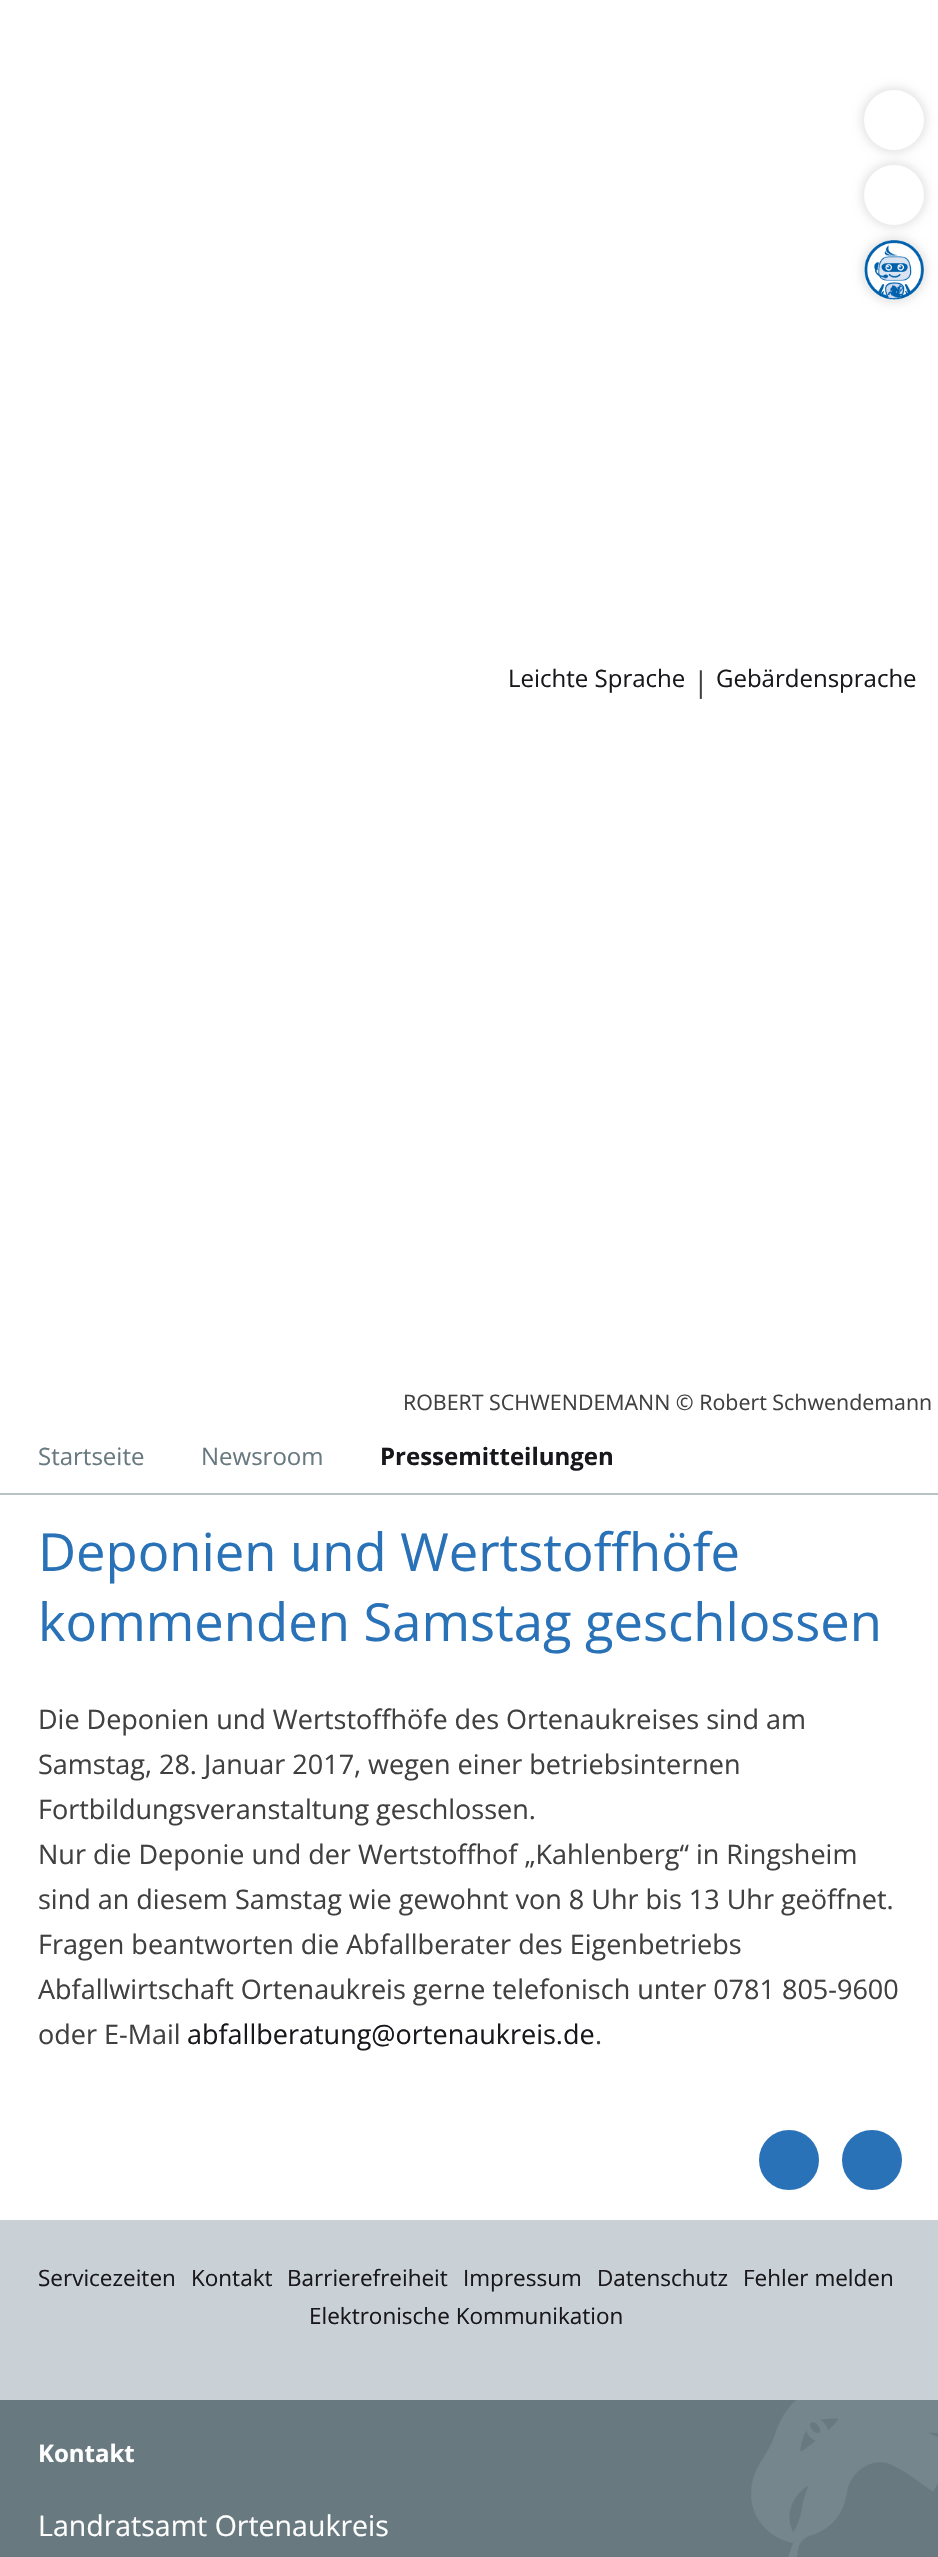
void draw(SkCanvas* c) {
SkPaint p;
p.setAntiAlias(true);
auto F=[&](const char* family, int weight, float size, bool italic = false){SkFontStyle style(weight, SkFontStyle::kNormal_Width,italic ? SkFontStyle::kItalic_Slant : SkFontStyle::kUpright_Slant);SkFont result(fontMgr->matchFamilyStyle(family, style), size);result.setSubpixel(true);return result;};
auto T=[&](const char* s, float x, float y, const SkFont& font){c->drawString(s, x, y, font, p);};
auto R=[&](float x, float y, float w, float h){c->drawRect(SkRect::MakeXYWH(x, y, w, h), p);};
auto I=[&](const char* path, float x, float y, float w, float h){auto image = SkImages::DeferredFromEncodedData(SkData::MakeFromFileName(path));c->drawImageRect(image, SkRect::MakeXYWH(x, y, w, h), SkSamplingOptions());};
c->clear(0xffffffff);
p.setColor(0x1a000000);
p.setMaskFilter(SkMaskFilter::MakeBlur(kNormal_SkBlurStyle, 4));
c->drawRoundRect(SkRect::MakeXYWH(861,87,66,66),33,33,p);
p.setMaskFilter(nullptr);
p.setColor(0xffffffff);
c->drawCircle(894,120,30,p);
p.setColor(0x1a000000);
p.setMaskFilter(SkMaskFilter::MakeBlur(kNormal_SkBlurStyle, 4));
c->drawRoundRect(SkRect::MakeXYWH(861,162,66,66),33,33,p);
p.setMaskFilter(nullptr);
p.setColor(0xffffffff);
c->drawCircle(894,195,30,p);
p.setColor(0x1a000000);
p.setMaskFilter(SkMaskFilter::MakeBlur(kNormal_SkBlurStyle, 4));
c->drawRoundRect(SkRect::MakeXYWH(861,237,66,66),33,33,p);
p.setMaskFilter(nullptr);
p.setColor(0xffffffff);
c->drawCircle(894,270,30,p);
I("1.png",864,240,60,60);
auto f1 = F("Open Sans",400,24);
p.setColor(0xff18171c);
T("Leichte Sprache",508,687,f1);
auto f2 = F("Open Sans",400,28.5);
p.setColor(0xff404040);
T("|",693,692,f2);
p.setColor(0xff18171c);
T("Gebärdensprache",716,687,f1);
auto f3 = F("Open Sans",400,21.4);
p.setColor(0xff404040);
T("ROBERT SCHWENDEMANN © Robert Schwendemann",403,1410,f3);
p.setColor(0xffb8c3c5);
R(0,1493,938,2);
p.setColor(0xff687980);
T("Startseite",38,1465,f1);
T("Newsroom",201,1465,f1);
auto f4 = F("Open Sans",700,24);
p.setColor(0xff18171c);
T("Pressemitteilungen",380,1465,f4);
auto f5 = F("Open Sans",400,52.5);
p.setColor(0xff2a72b8);
T("Deponien und Wertstoffhöfe",38,1571,f5);
T("kommenden Samstag geschlossen",38,1641,f5);
auto f6 = F("Open Sans",400,27);
p.setColor(0xff404040);
T("Die Deponien und Wertstoffhöfe des Ortenaukreises sind am",38,1729,f6);
T("Samstag, 28. Januar 2017, wegen einer betriebsinternen",38,1774,f6);
T("Fortbildungsveranstaltung geschlossen.",38,1819,f6);
T("Nur die Deponie und der Wertstoffhof „Kahlenberg“ in Ringsheim",38,1864,f6);
T("sind an diesem Samstag wie gewohnt von 8 Uhr bis 13 Uhr geöffnet.",38,1909,f6);
T("Fragen beantworten die Abfallberater des Eigenbetriebs",38,1954,f6);
T("Abfallwirtschaft Ortenaukreis gerne telefonisch unter 0781 805-9600",38,1999,f6);
T("oder E-Mail",38,2044,f6);
p.setColor(0xff18171c);
T("abfallberatung@ortenaukreis.de",187,2044,f6);
p.setColor(0xff404040);
T(".",595,2044,f6);
p.setColor(0xff2a72b8);
c->drawCircle(789,2160,29,p);
p.setStroke(true);
p.setStrokeWidth(2);
c->drawCircle(789,2160,29,p);
p.setStroke(false);
c->drawCircle(872,2160,29,p);
p.setStroke(true);
c->drawCircle(872,2160,29,p);
p.setStroke(false);
p.setColor(0xff687980);
R(0,2400,938,157);
p.setColor(0xffcad1d6);
R(0,2220,938,180);
auto f7 = F("Open Sans",400,22.5);
p.setColor(0xff18171c);
T("Servicezeiten",38,2286,f7);
T("Kontakt",191,2286,f7);
T("Barrierefreiheit",287,2286,f7);
T("Impressum",463,2286,f7);
T("Datenschutz",597,2286,f7);
T("Fehler melden",743,2286,f7);
T("Elektronische Kommunikation",309,2324,f7);
p.setColor(0xffffffff);
T("Kontakt",38,2462,f4);
T("Landratsamt Ortenaukreis",38,2536,f2);
I("2.png",751,2400,187,157);
}
